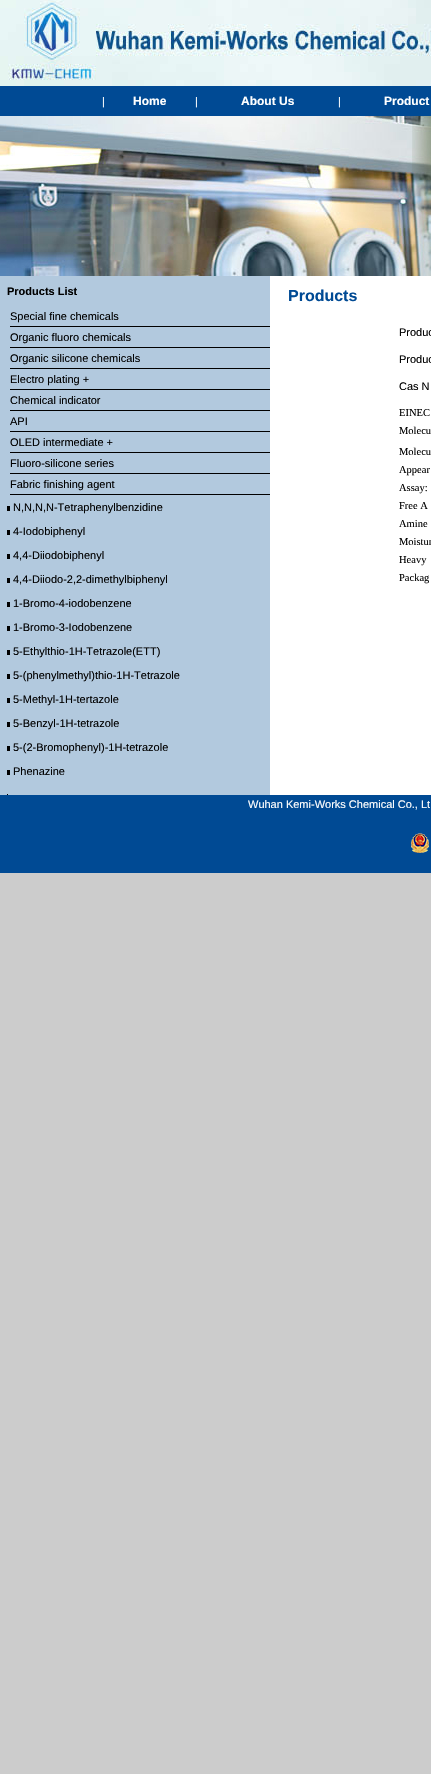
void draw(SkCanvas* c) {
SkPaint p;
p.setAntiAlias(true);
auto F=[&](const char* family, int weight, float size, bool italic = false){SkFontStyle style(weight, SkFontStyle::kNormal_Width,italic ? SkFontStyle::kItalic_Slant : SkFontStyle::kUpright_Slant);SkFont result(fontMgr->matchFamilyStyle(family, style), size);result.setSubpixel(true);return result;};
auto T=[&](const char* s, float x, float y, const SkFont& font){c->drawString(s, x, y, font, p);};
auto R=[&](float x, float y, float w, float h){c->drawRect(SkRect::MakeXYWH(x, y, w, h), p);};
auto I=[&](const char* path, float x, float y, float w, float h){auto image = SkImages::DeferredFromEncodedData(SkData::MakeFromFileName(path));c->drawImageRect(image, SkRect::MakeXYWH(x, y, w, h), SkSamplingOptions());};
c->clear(0xffcccccc);
I("1.png",0,0,431,86);
p.setColor(0xff004a94);
R(0,86,431,30);
auto f1 = F("Liberation Sans",400,11);
p.setColor(0xffffffff);
T("|",102,105,f1);
auto f2 = F("Liberation Sans",700,12);
T("Home",133,105,f2);
T("|",195,105,f1);
T("About Us",241,105,f2);
T("|",338,105,f1);
T("Product",384,105,f2);
I("2.png",0,116,431,160);
p.setColor(0xffb2c9de);
R(0,276,270,519);
auto f3 = F("Liberation Sans",700,11);
p.setColor(0xff000000);
T("Products List",7,295,f3);
R(10,326,260,1);
T("Special fine chemicals",10,320,f1);
R(10,347,260,1);
T("Organic fluoro chemicals",10,341,f1);
R(10,368,260,1);
T("Organic silicone chemicals",10,362,f1);
R(10,389,260,1);
T("Electro plating +",10,383,f1);
R(10,410,260,1);
T("Chemical indicator",10,404,f1);
R(10,431,260,1);
T("API",10,425,f1);
R(10,452,260,1);
T("OLED intermediate +",10,446,f1);
R(10,473,260,1);
T("Fluoro-silicone series",10,467,f1);
R(10,494,260,1);
T("Fabric finishing agent",10,488,f1);
R(7,506,3,5);
T("N,N,N,N-Tetraphenylbenzidine",13,511,f1);
R(7,530,3,5);
T("4-Iodobiphenyl",13,535,f1);
R(7,554,3,5);
T("4,4-Diiodobiphenyl",13,559,f1);
R(7,578,3,5);
T("4,4-Diiodo-2,2-dimethylbiphenyl",13,583,f1);
R(7,602,3,5);
T("1-Bromo-4-iodobenzene",13,607,f1);
R(7,626,3,5);
T("1-Bromo-3-Iodobenzene",13,631,f1);
R(7,650,3,5);
T("5-Ethylthio-1H-Tetrazole(ETT)",13,655,f1);
R(7,674,3,5);
T("5-(phenylmethyl)thio-1H-Tetrazole",13,679,f1);
R(7,698,3,5);
T("5-Methyl-1H-tertazole",13,703,f1);
R(7,722,3,5);
T("5-Benzyl-1H-tetrazole",13,727,f1);
R(7,746,3,5);
T("5-(2-Bromophenyl)-1H-tetrazole",13,751,f1);
R(7,770,3,5);
T("Phenazine",13,775,f1);
R(7,794,1,1);
p.setColor(0xffffffff);
R(270,276,161,519);
auto f4 = F("Liberation Sans",700,16);
p.setColor(0xff004a94);
T("Products",288,301,f4);
p.setColor(0xff000000);
T("Produc",399,336,f1);
T("Produc",399,363,f1);
T("Cas N",399,390,f1);
auto f5 = F("Liberation Serif",400,10.5);
T("EINEC",399,416,f5);
T("Molecu",399,434,f5);
T("Molecu",399,455,f5);
T("Appear",399,473,f5);
T("Assay:",399,491,f5);
T("Free A",399,509,f5);
T("Amine",399,527,f5);
T("Moistur",399,545,f5);
T("Heavy",399,563,f5);
T("Packag",399,581,f5);
p.setColor(0xff004a94);
R(0,795,431,78);
p.setColor(0xffffffff);
T("Wuhan Kemi-Works Chemical Co., Lt",248,808,f1);
I("3.png",411,833,18,20);
}
